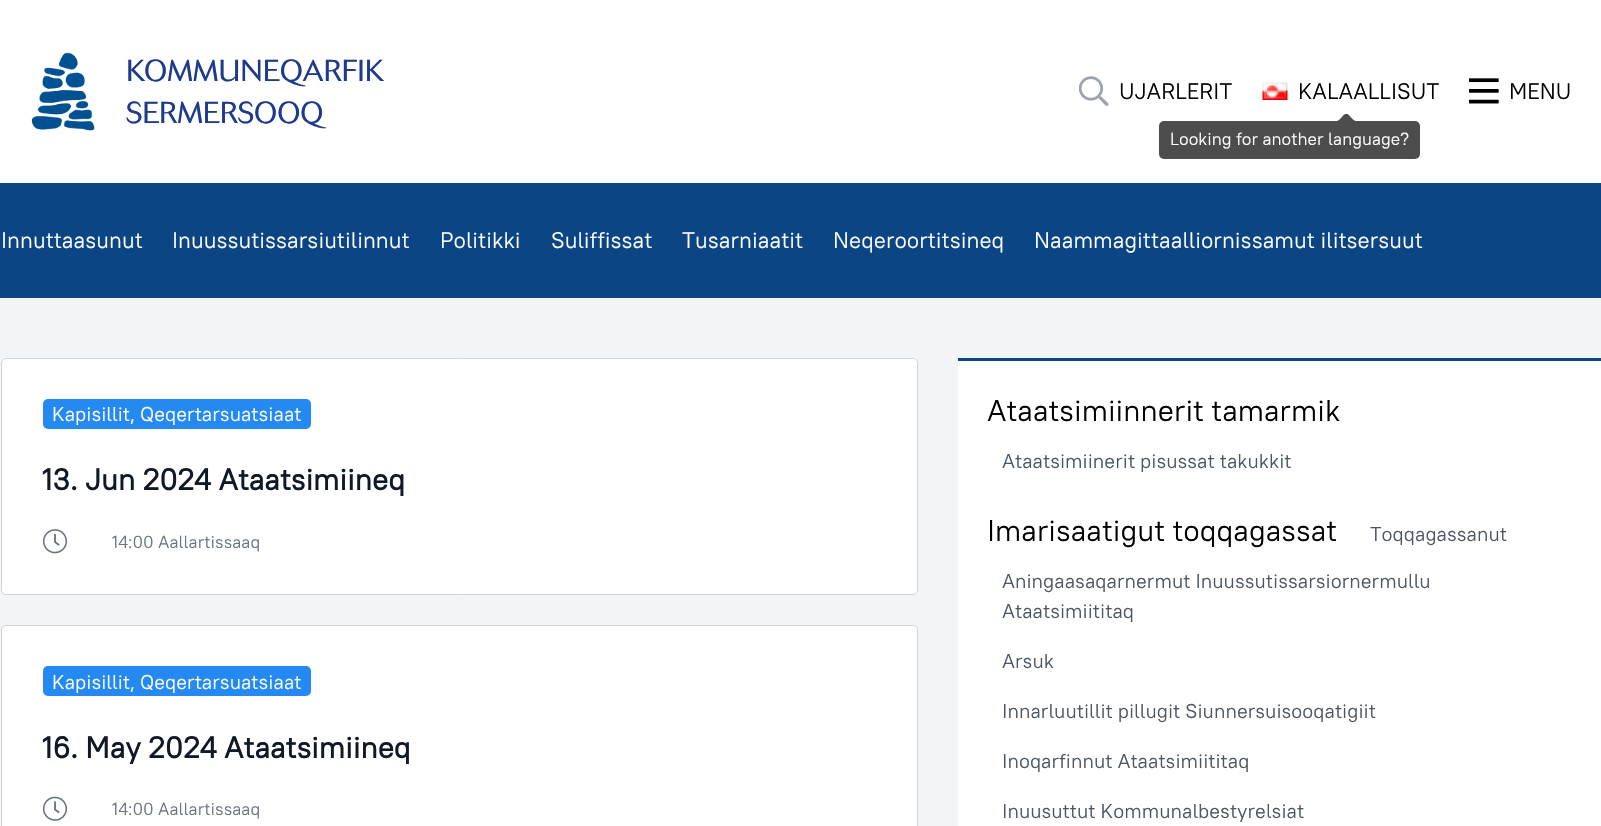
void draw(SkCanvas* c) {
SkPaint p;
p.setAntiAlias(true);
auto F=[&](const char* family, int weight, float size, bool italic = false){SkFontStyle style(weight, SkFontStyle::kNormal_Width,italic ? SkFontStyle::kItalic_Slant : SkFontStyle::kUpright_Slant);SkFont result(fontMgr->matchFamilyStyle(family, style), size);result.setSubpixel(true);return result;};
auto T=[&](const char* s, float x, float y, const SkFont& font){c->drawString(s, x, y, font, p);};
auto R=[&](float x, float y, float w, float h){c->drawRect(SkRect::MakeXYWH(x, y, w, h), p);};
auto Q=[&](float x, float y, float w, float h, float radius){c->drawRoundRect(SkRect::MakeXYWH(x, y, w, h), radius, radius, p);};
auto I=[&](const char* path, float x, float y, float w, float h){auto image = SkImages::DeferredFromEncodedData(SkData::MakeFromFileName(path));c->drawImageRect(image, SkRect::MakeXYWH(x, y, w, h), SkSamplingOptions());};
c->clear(0xffffffff);
I("1.png",31,52,64,79);
auto f1 = F("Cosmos",300,30);
p.setColor(0xff1e3a8a);
T("KOMMUNEQARFIK",126,81,f1);
T("SERMERSOOQ",126,123,f1);
I("2.png",1079,76,30,30);
auto f2 = F("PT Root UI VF",400,22.5);
p.setColor(0xff000000);
T("UJARLERIT",1119,99,f2);
I("3.png",1262,82,26,18);
T("KALAALLISUT",1298,99,f2);
I("4.png",1469,78,30,26);
T("MENU",1509,99,f2);
p.setColor(0xff0c4584);
R(0,183,1601,115);
p.setColor(0xffffffff);
T("Innuttaasunut",1,248,f2);
T("Inuussutissarsiutilinnut",172,248,f2);
T("Politikki",440,248,f2);
T("Suliffissat",551,248,f2);
T("Tusarniaatit",682,248,f2);
T("Neqeroortitsineq",833,248,f2);
T("Naammagittaalliornissamut ilitsersuut",1034,248,f2);
p.setColor(0xfff3f4f6);
R(0,298,1601,528);
p.setColor(0xffffffff);
c->drawRoundRect(SkRect::MakeXYWH(1.5,358.5,916,236),4.5,4.5,p);
p.setStroke(true);
p.setStrokeWidth(1);
p.setColor(0xffd1d5db);
c->drawRoundRect(SkRect::MakeXYWH(1.5,358.5,916,236),4.5,4.5,p);
p.setStroke(false);
p.setColor(0xff248af1);
Q(43,399,268,30,5);
auto f3 = F("PT Root UI VF",400,20);
p.setColor(0xffffffff);
T("Kapisillit, Qeqertarsuatsiaat",52,421,f3);
auto f4 = F("PT Root UI VF",700,30);
p.setColor(0xff111827);
T("13. Jun 2024 Ataatsimiineq",42,490,f4);
I("5.png",43,529,25,25);
auto f5 = F("PT Root UI VF",400,17.5);
p.setColor(0xff6b7280);
T("14:00 Aallartissaaq",112,548,f5);
p.setColor(0xffffffff);
c->drawRoundRect(SkRect::MakeXYWH(1.5,625.5,916,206),4.5,4.5,p);
p.setStroke(true);
p.setColor(0xffd1d5db);
c->drawRoundRect(SkRect::MakeXYWH(1.5,625.5,916,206),4.5,4.5,p);
p.setStroke(false);
p.setColor(0xff248af1);
Q(43,666,268,30,5);
p.setColor(0xffffffff);
T("Kapisillit, Qeqertarsuatsiaat",52,689,f3);
p.setColor(0xff111827);
T("16. May 2024 Ataatsimiineq",42,758,f4);
I("6.png",43,796,25,25);
p.setColor(0xff6b7280);
T("14:00 Aallartissaaq",112,815,f5);
p.setColor(0xffffffff);
R(958,361,643,465);
p.setColor(0xff0c4584);
R(958,358,643,3);
auto f6 = F("PT Root UI VF",400,30);
p.setColor(0xff000000);
T("Ataatsimiinnerit tamarmik",987,421,f6);
p.setColor(0xff4b5563);
T("Ataatsimiinerit pisussat takukkit",1002,468,f3);
p.setColor(0xff000000);
T("Imarisaatigut toqqagassat",987,541,f6);
p.setColor(0xff4b5563);
T("Toqqagassanut",1370,541,f3);
T("Aningaasaqarnermut Inuussutissarsiornermullu",1002,588,f3);
T("Ataatsimiititaq",1002,618,f3);
T("Arsuk",1002,668,f3);
T("Innarluutillit pillugit Siunnersuisooqatigiit",1002,718,f3);
T("Inoqarfinnut Ataatsimiititaq",1002,768,f3);
T("Inuusuttut Kommunalbestyrelsiat",1002,818,f3);
p.setColor(0xff4d4d4d);
Q(1159,121,261,38,5);
I("7.png",1337,114,19,7);
p.setColor(0xffffffff);
T("Looking for another language?",1170,145,f5);
}
